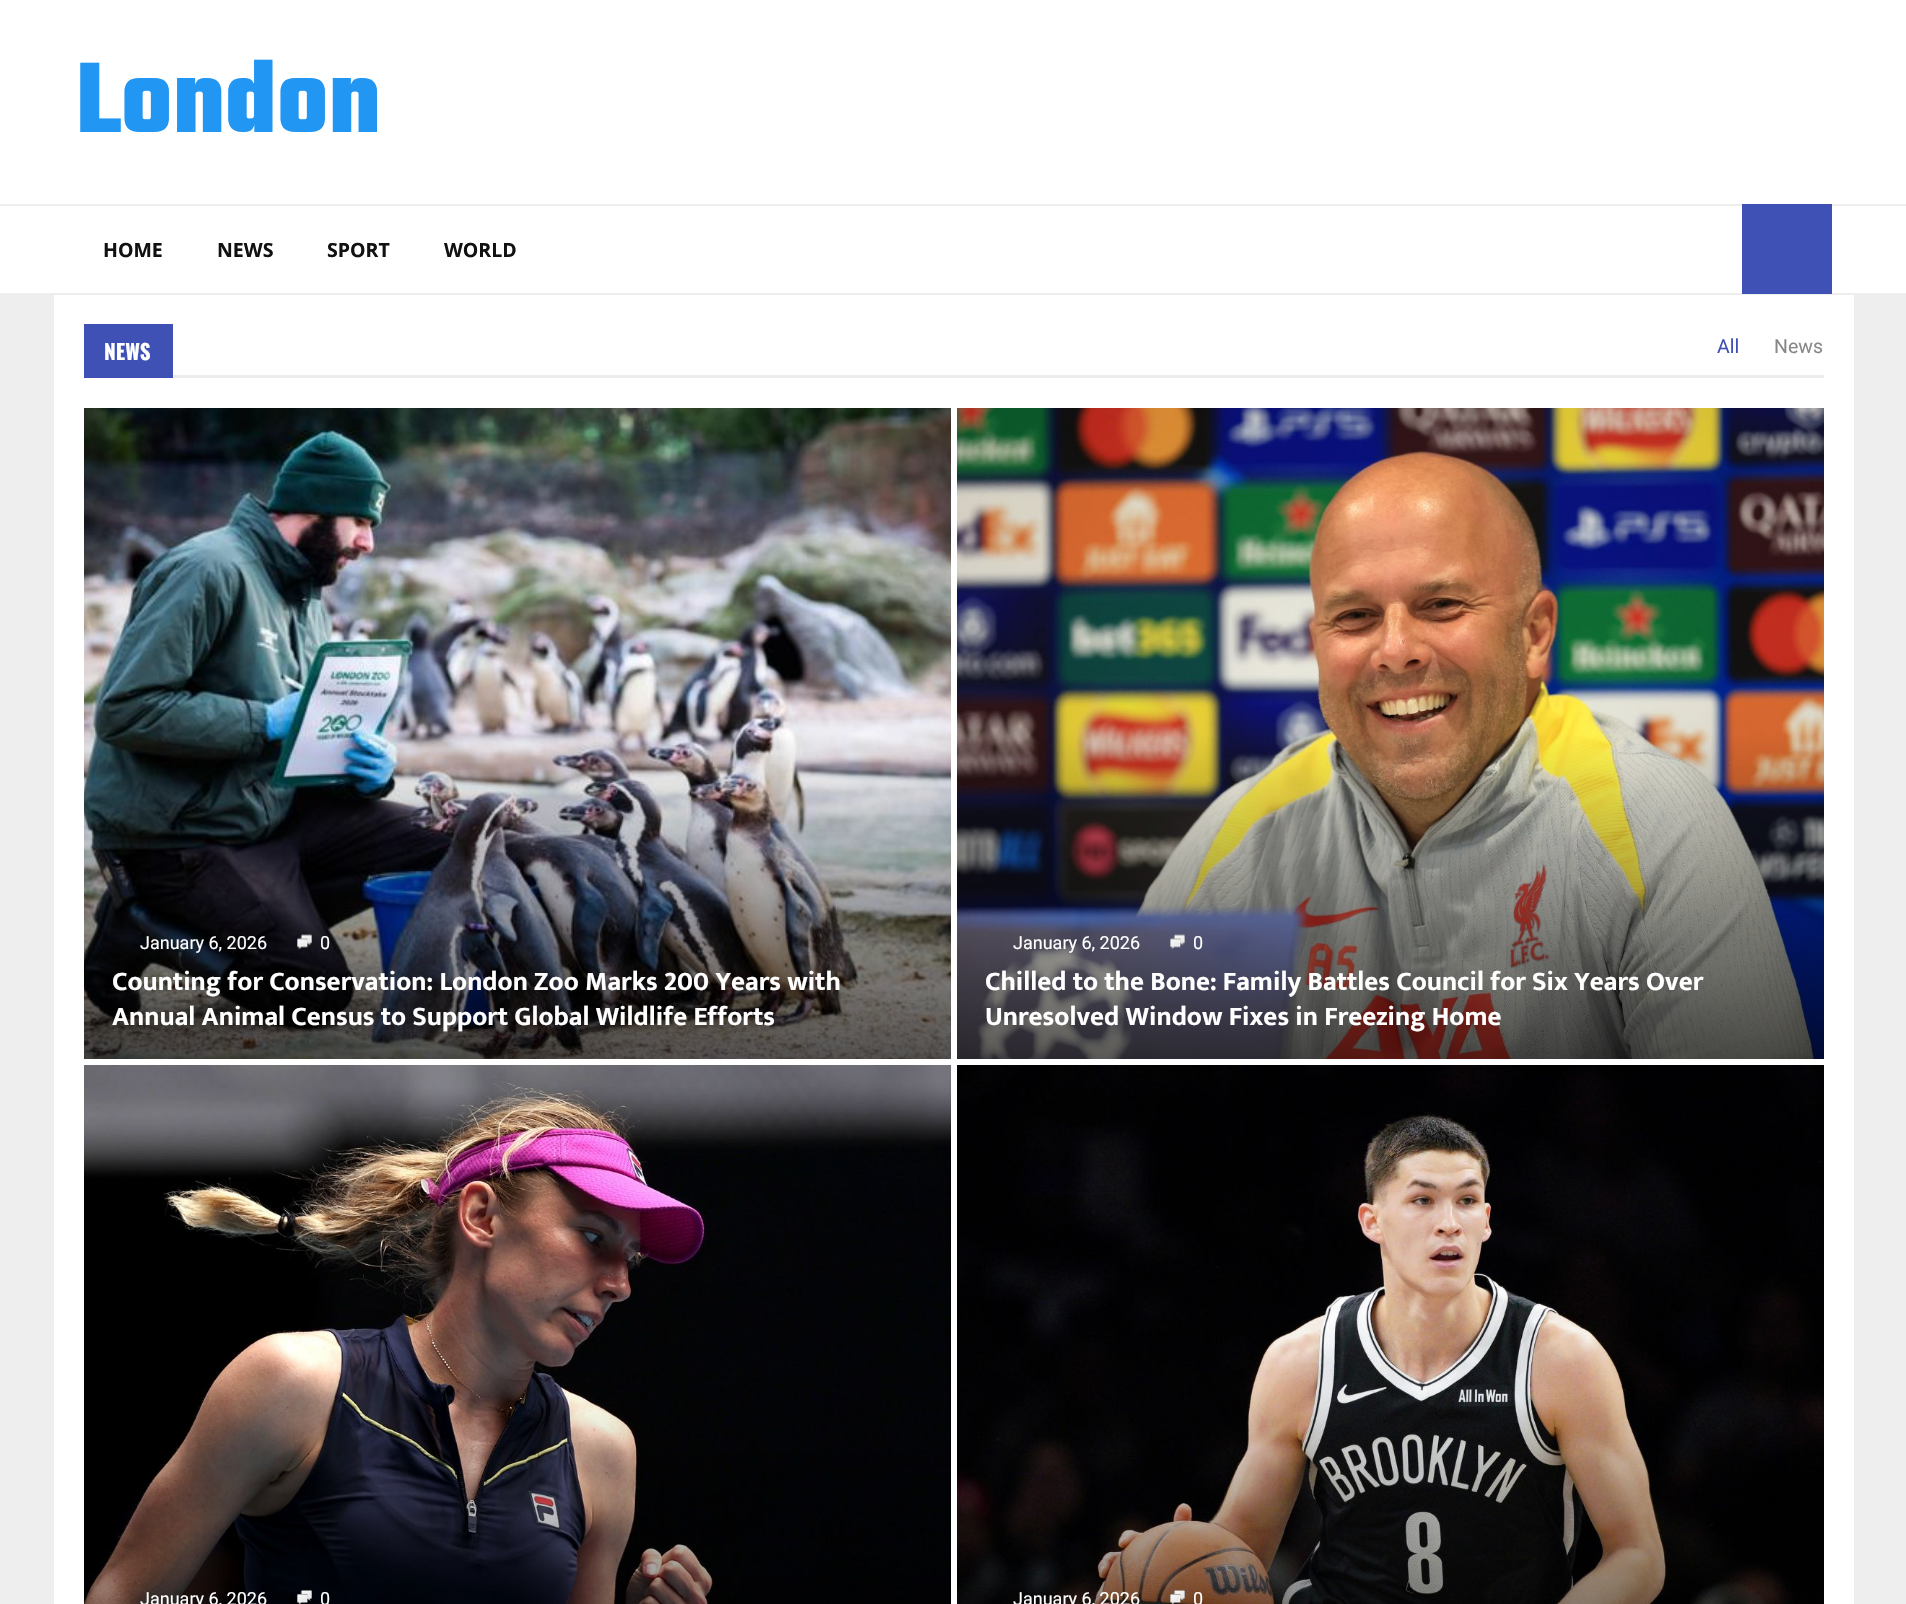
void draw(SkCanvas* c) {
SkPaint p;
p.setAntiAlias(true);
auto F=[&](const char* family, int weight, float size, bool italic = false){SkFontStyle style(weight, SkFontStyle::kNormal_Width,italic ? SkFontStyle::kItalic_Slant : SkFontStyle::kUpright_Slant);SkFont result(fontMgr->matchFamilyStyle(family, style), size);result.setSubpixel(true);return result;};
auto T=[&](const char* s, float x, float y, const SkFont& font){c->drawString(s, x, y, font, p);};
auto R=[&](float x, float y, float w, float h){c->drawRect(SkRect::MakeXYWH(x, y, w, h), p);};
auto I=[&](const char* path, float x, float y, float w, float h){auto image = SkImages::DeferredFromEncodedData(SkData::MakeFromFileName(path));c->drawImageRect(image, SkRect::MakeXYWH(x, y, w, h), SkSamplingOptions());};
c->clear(0xffeeeeee);
p.setColor(0xffffffff);
R(0,0,1906,204);
auto f1 = F("Teko",700,108);
p.setColor(0xff2196f3);
T("London",76,132,f1);
p.setColor(0xffffffff);
R(0,206,1906,87);
auto f2 = F("Open Sans",700,19.5);
p.setColor(0xff111111);
T("HOME",103,257,f2);
T("NEWS",217,257,f2);
T("SPORT",327,257,f2);
T("WORLD",444,257,f2);
p.setColor(0xff3f51b5);
R(1742,204,90,90);
p.setColor(0xffffffff);
R(54,295,1800,1309);
p.setColor(0xffececec);
R(173,375,1651,3);
p.setColor(0xff3f51b5);
R(84,324,89,54);
auto f3 = F("Oswald",700,21);
p.setColor(0xffffffff);
T("NEWS",104,360,f3);
auto f4 = F("Roboto",400,19.5);
p.setColor(0xff3f51b5);
T("All",1717,353,f4);
p.setColor(0xff888888);
T("News",1774,353,f4);
I("1.png",84,408,867,651);
auto f5 = F("Roboto",400,18);
p.setColor(0xffffffff);
T("January 6, 2026",140,949,f5);
I("2.png",297,934,15,16);
T("0",320,949,f5);
auto f6 = F("Mukta Vaani",700,27);
T("Counting for Conservation: London Zoo Marks 200 Years with",112,990,f6);
T("Annual Animal Census to Support Global Wildlife Efforts",112,1025,f6);
I("3.png",957,408,867,651);
T("January 6, 2026",1013,949,f5);
I("4.png",1170,934,15,16);
T("0",1193,949,f5);
T("Chilled to the Bone: Family Battles Council for Six Years Over",985,990,f6);
T("Unresolved Window Fixes in Freezing Home",985,1025,f6);
I("5.png",84,1065,867,539);
T("January 6, 2026",140,1605,f5);
I("6.png",297,1590,15,14);
T("0",320,1605,f5);
I("7.png",957,1065,867,539);
T("January 6, 2026",1013,1605,f5);
I("8.png",1170,1590,15,14);
T("0",1193,1605,f5);
}
